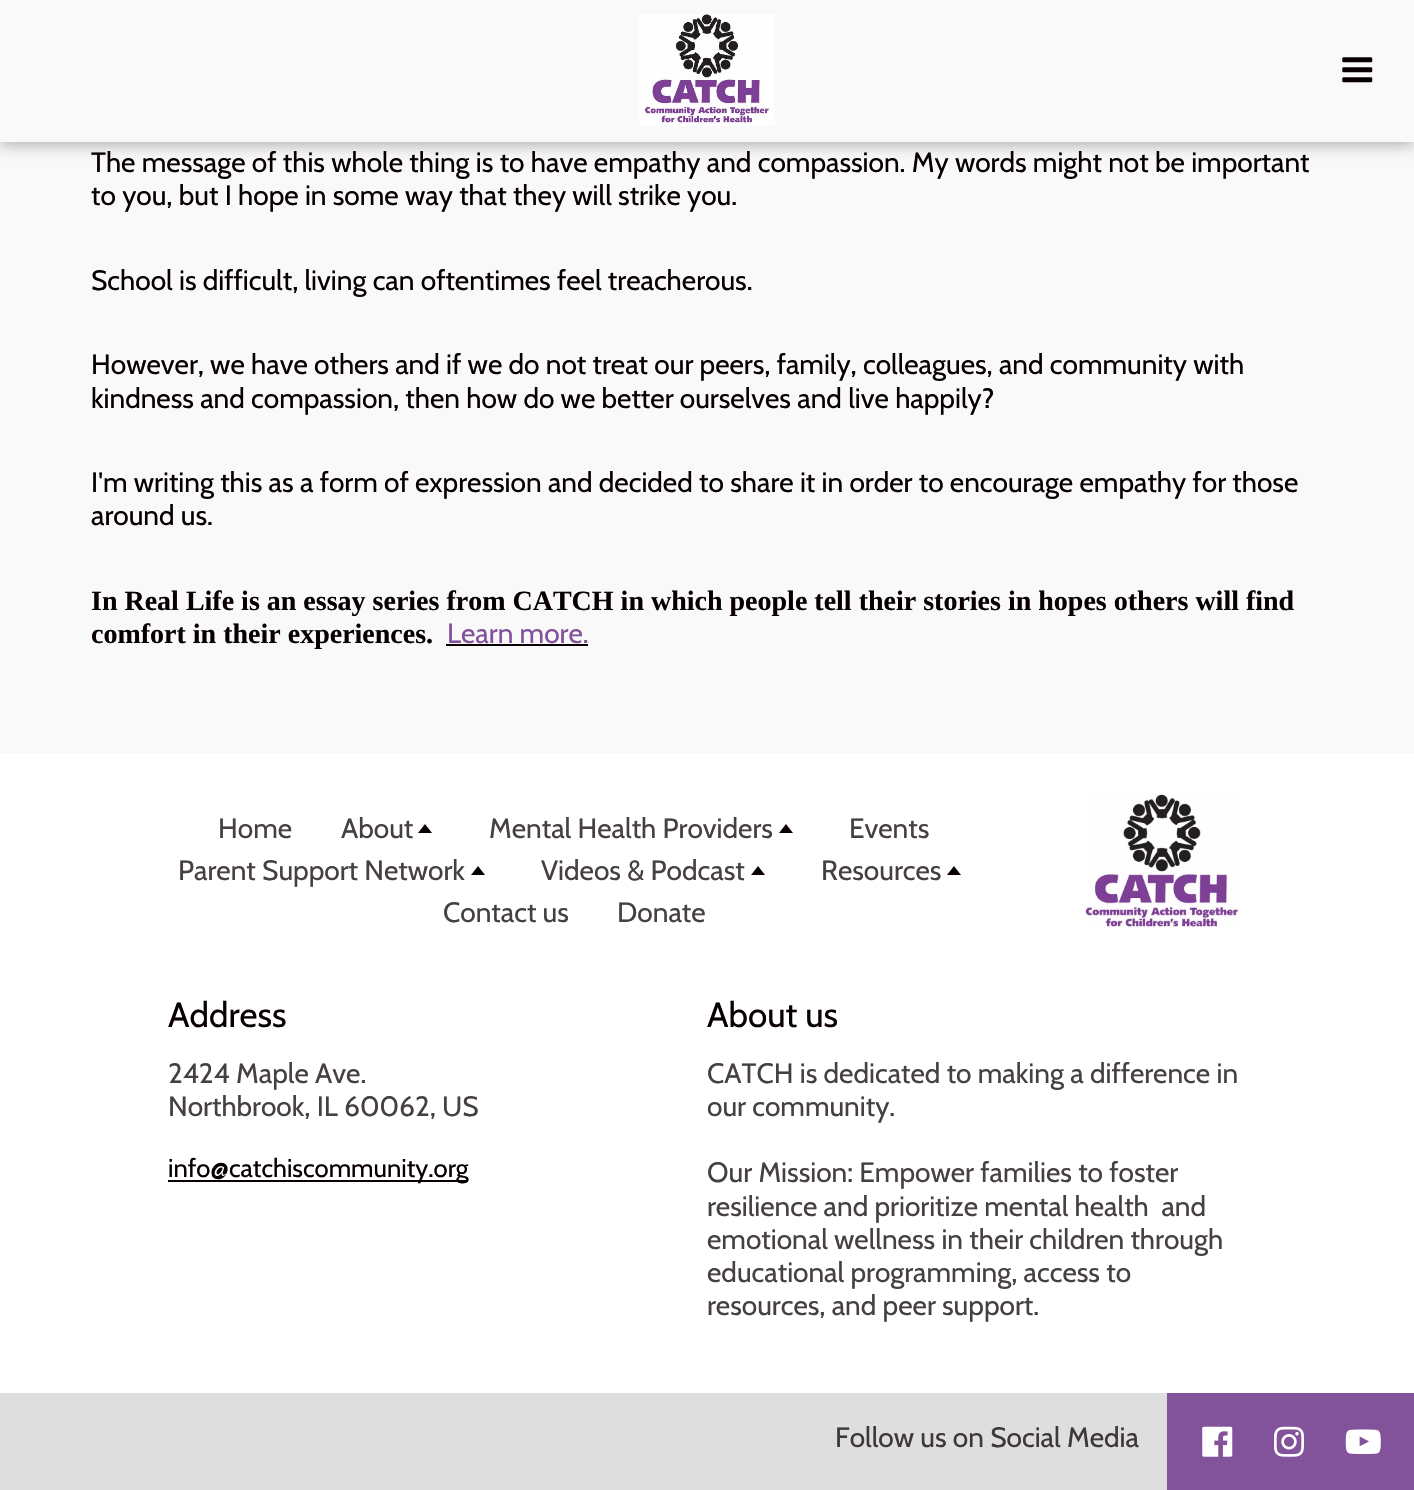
void draw(SkCanvas* c) {
SkPaint p;
p.setAntiAlias(true);
auto F=[&](const char* family, int weight, float size, bool italic = false){SkFontStyle style(weight, SkFontStyle::kNormal_Width,italic ? SkFontStyle::kItalic_Slant : SkFontStyle::kUpright_Slant);SkFont result(fontMgr->matchFamilyStyle(family, style), size);result.setSubpixel(true);return result;};
auto T=[&](const char* s, float x, float y, const SkFont& font){c->drawString(s, x, y, font, p);};
auto R=[&](float x, float y, float w, float h){c->drawRect(SkRect::MakeXYWH(x, y, w, h), p);};
auto I=[&](const char* path, float x, float y, float w, float h){auto image = SkImages::DeferredFromEncodedData(SkData::MakeFromFileName(path));c->drawImageRect(image, SkRect::MakeXYWH(x, y, w, h), SkSamplingOptions());};
auto P=[&](const char* data, bool evenOdd = false){SkPath result = *SkParsePath::FromSVGString(data);if (evenOdd) result.setFillType(SkPathFillType::kEvenOdd);return result;};
c->clear(0xffffffff);
p.setColor(0xfff9f9f9);
R(0,142,1414,611);
p.setColor(0x4d000000);
p.setMaskFilter(SkMaskFilter::MakeBlur(kNormal_SkBlurStyle, 7));
c->drawRect(SkRect::MakeXYWH(0,4,1414,141),p);
p.setMaskFilter(nullptr);
p.setColor(0xfff9f9f9);
R(0,0,1414,142);
I("1.png",639,14,136,112);
I("2.png",1342,57,31,26);
auto f1 = F("Cabin",400,28);
p.setColor(0xff080000);
T("The message of this whole thing is to have empathy and compassion. My words might not be important",91,172,f1);
T("to you, but I hope in some way that they will strike you.",91,205,f1);
T("School is difficult, living can oftentimes feel treacherous.",91,290,f1);
T("However, we have others and if we do not treat our peers, family, colleagues, and community with",91,374,f1);
T("kindness and compassion, then how do we better ourselves and live happily?",91,408,f1);
T("I'm writing this as a form of expression and decided to share it in order to encourage empathy for those",91,492,f1);
T("around us.",91,525,f1);
auto f2 = F("Liberation Serif",700,28);
T("In Real Life is an essay series from CATCH in which people tell their stories in hopes others will find",91,610,f2);
T("comfort in their experiences.",91,643,f2);
p.setColor(0xff82529b);
T("Learn more.",447,643,f1);
p.setColor(0xff080000);
R(446,644,142,2);
p.setColor(0xff464040);
T("Home",218,838,f1);
T("About",341,838,f1);
p.setColor(0xff080000);
c->drawPath(P("M432 833h-14l7-9z"),p);
p.setColor(0xff464040);
T("Mental Health Providers",489,838,f1);
p.setColor(0xff080000);
c->drawPath(P("M793 833h-14l7-9z"),p);
p.setColor(0xff464040);
T("Events",849,838,f1);
T("Parent Support Network",178,880,f1);
p.setColor(0xff080000);
c->drawPath(P("M485 875h-14l7-9z"),p);
p.setColor(0xff464040);
T("Videos & Podcast",541,880,f1);
p.setColor(0xff080000);
c->drawPath(P("M765 875h-14l7-9z"),p);
p.setColor(0xff464040);
T("Resources",821,880,f1);
p.setColor(0xff080000);
c->drawPath(P("M961 875h-14l7-9z"),p);
p.setColor(0xff464040);
T("Contact us",443,922,f1);
T("Donate",617,922,f1);
I("3.png",1085,794,154,134);
auto f3 = F("Cabin",400,35);
p.setColor(0xff080000);
T("Address",168,1027,f3);
p.setColor(0xff464040);
T("2424 Maple Ave.",168,1083,f1);
T("Northbrook, IL 60062, US",168,1116,f1);
p.setColor(0xff080000);
R(168,1180,299,2);
auto f4 = F("Cabin",400,25.6);
T("info@catchiscommunity.org",168,1177,f4);
T("About us",707,1027,f3);
p.setColor(0xff464040);
T("CATCH is dedicated to making a difference in",707,1083,f1);
T("our community.",707,1116,f1);
T("Our Mission: Empower families to foster",707,1182,f1);
T("resilience and prioritize mental health  and",707,1216,f1);
T("emotional wellness in their children through",707,1249,f1);
T("educational programming, access to",707,1282,f1);
T("resources, and peer support.",707,1315,f1);
p.setColor(0xffdedede);
R(0,1393,1167,97);
p.setColor(0xff3e3838);
T("Follow us on Social Media",835,1447,f1);
p.setColor(0xff82529b);
R(1167,1393,247,97);
I("4.png",1202,1426,31,31);
I("5.png",1274,1426,30,31);
I("6.png",1345,1429,36,26);
}
